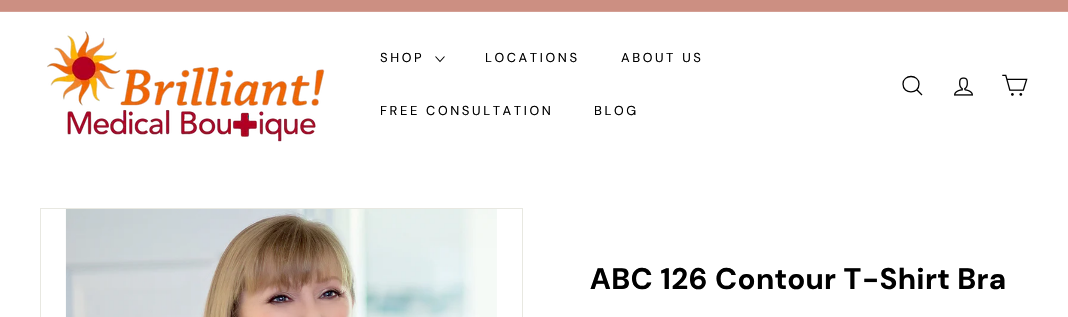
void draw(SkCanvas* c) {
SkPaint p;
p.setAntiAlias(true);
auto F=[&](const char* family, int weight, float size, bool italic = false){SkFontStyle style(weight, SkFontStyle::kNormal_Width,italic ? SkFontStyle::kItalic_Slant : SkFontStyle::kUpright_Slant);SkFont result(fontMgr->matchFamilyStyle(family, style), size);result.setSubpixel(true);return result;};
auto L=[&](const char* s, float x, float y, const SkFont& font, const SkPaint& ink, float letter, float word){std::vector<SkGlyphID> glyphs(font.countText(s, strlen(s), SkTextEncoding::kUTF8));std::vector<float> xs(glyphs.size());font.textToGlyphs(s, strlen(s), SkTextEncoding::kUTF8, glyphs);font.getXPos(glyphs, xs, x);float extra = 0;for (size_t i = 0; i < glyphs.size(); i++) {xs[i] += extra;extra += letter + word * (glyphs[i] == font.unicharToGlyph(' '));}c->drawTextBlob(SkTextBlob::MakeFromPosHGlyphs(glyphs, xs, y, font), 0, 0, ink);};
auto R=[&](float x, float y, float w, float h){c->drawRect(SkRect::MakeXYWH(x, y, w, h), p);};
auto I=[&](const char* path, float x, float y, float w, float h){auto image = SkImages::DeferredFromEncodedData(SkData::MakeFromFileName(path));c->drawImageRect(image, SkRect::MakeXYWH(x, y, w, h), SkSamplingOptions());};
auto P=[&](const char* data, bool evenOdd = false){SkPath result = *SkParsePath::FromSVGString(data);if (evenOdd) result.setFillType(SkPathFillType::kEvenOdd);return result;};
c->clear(0xffffffff);
p.setColor(0xffcc8f82);
R(0,0,1068,11);
p.setColor(0xffd4a095);
R(0,11,1068,1);
I("1.png",47,31,278,111);
auto f1 = F("DM Sans",400,13);
p.setColor(0xff000000);
L("SHOP",380,62,f1,p,2.6,0);
p.setStroke(true);
p.setStrokeWidth(1.1);
c->drawPath(P("M435.5 56.5l4.5 5l4.5-5"),p);
p.setStroke(false);
L("LOCATIONS",485,62,f1,p,2.6,0);
L("ABOUT US",621,62,f1,p,2.6,0);
L("FREE CONSULTATION",380,115,f1,p,2.6,0);
L("BLOG",594,115,f1,p,2.6,0);
p.setStroke(true);
p.setStrokeWidth(1.3);
c->drawPath(P("M919 84c0 10.5-16 10.5-16 0c0-10 16-10 16 0m3 11l-5.5-5.5"),p);
I("2.png",954,77,19,19);
I("3.png",1002,74,26,22);
p.setStrokeWidth(1);
p.setColor(0xffe8e8e1);
c->drawRect(SkRect::MakeXYWH(40.5,208.5,482,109),p);
I("4.png",65,209,432,108);
auto f2 = F("DM Sans",700,29.75);
p.setStroke(false);
p.setColor(0xff000000);
L("ABC 126 Contour T-Shirt Bra",590,289,f2,p,.75,0);
}
